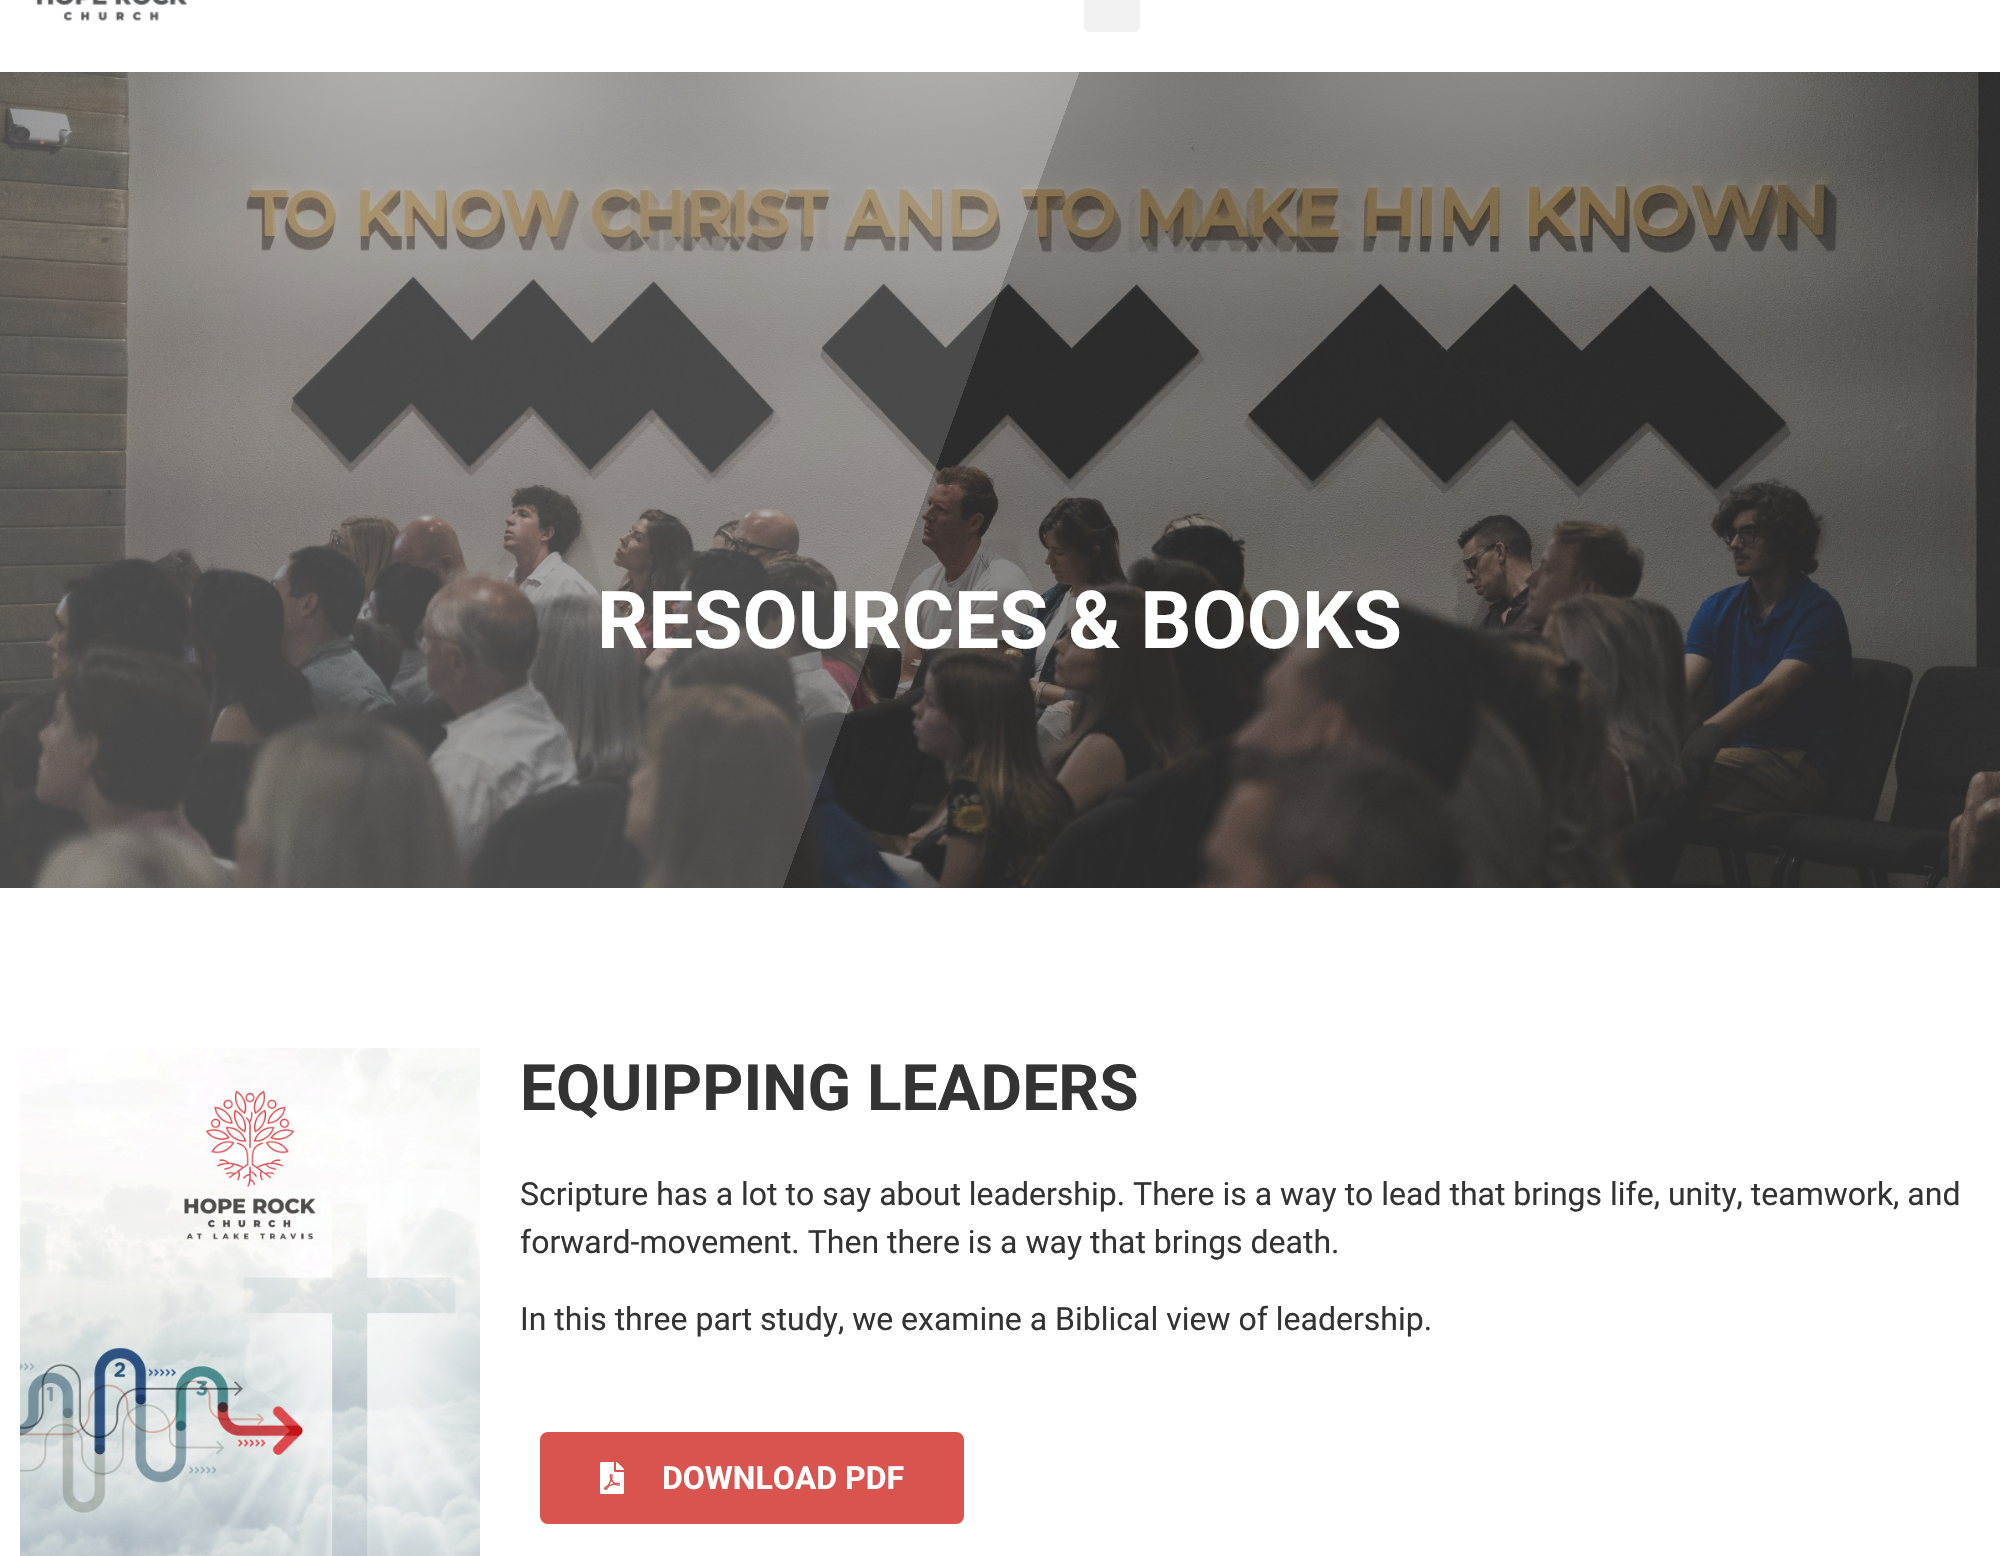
void draw(SkCanvas* c) {
SkPaint p;
p.setAntiAlias(true);
auto F=[&](const char* family, int weight, float size, bool italic = false){SkFontStyle style(weight, SkFontStyle::kNormal_Width,italic ? SkFontStyle::kItalic_Slant : SkFontStyle::kUpright_Slant);SkFont result(fontMgr->matchFamilyStyle(family, style), size);result.setSubpixel(true);return result;};
auto T=[&](const char* s, float x, float y, const SkFont& font){c->drawString(s, x, y, font, p);};
auto Q=[&](float x, float y, float w, float h, float radius){c->drawRoundRect(SkRect::MakeXYWH(x, y, w, h), radius, radius, p);};
auto I=[&](const char* path, float x, float y, float w, float h){auto image = SkImages::DeferredFromEncodedData(SkData::MakeFromFileName(path));c->drawImageRect(image, SkRect::MakeXYWH(x, y, w, h), SkSamplingOptions());};
c->clear(0xffffffff);
I("1.png",36,0,151,21);
p.setColor(0xfff2f2f2);
Q(1084,-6,56,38,6);
I("2.png",0,72,2000,816);
auto f1 = F("Roboto",700,80);
p.setColor(0xffffffff);
T("RESOURCES & BOOKS",597,648,f1);
I("3.png",20,1048,460,508);
auto f2 = F("Roboto",700,64);
p.setColor(0xff333333);
T("EQUIPPING LEADERS",520,1110,f2);
auto f3 = F("Roboto",400,32);
T("Scripture has a lot to say about leadership. There is a way to lead that brings life, unity, teamwork, and",520,1205,f3);
T("forward-movement. Then there is a way that brings death.",520,1253,f3);
T("In this three part study, we examine a Biblical view of leadership.",520,1330,f3);
p.setColor(0xffd9534f);
Q(540,1432,424,92,8);
I("4.png",600,1462,24,32);
auto f4 = F("Roboto",700,32);
p.setColor(0xffffffff);
T("DOWNLOAD PDF",662,1489,f4);
}
